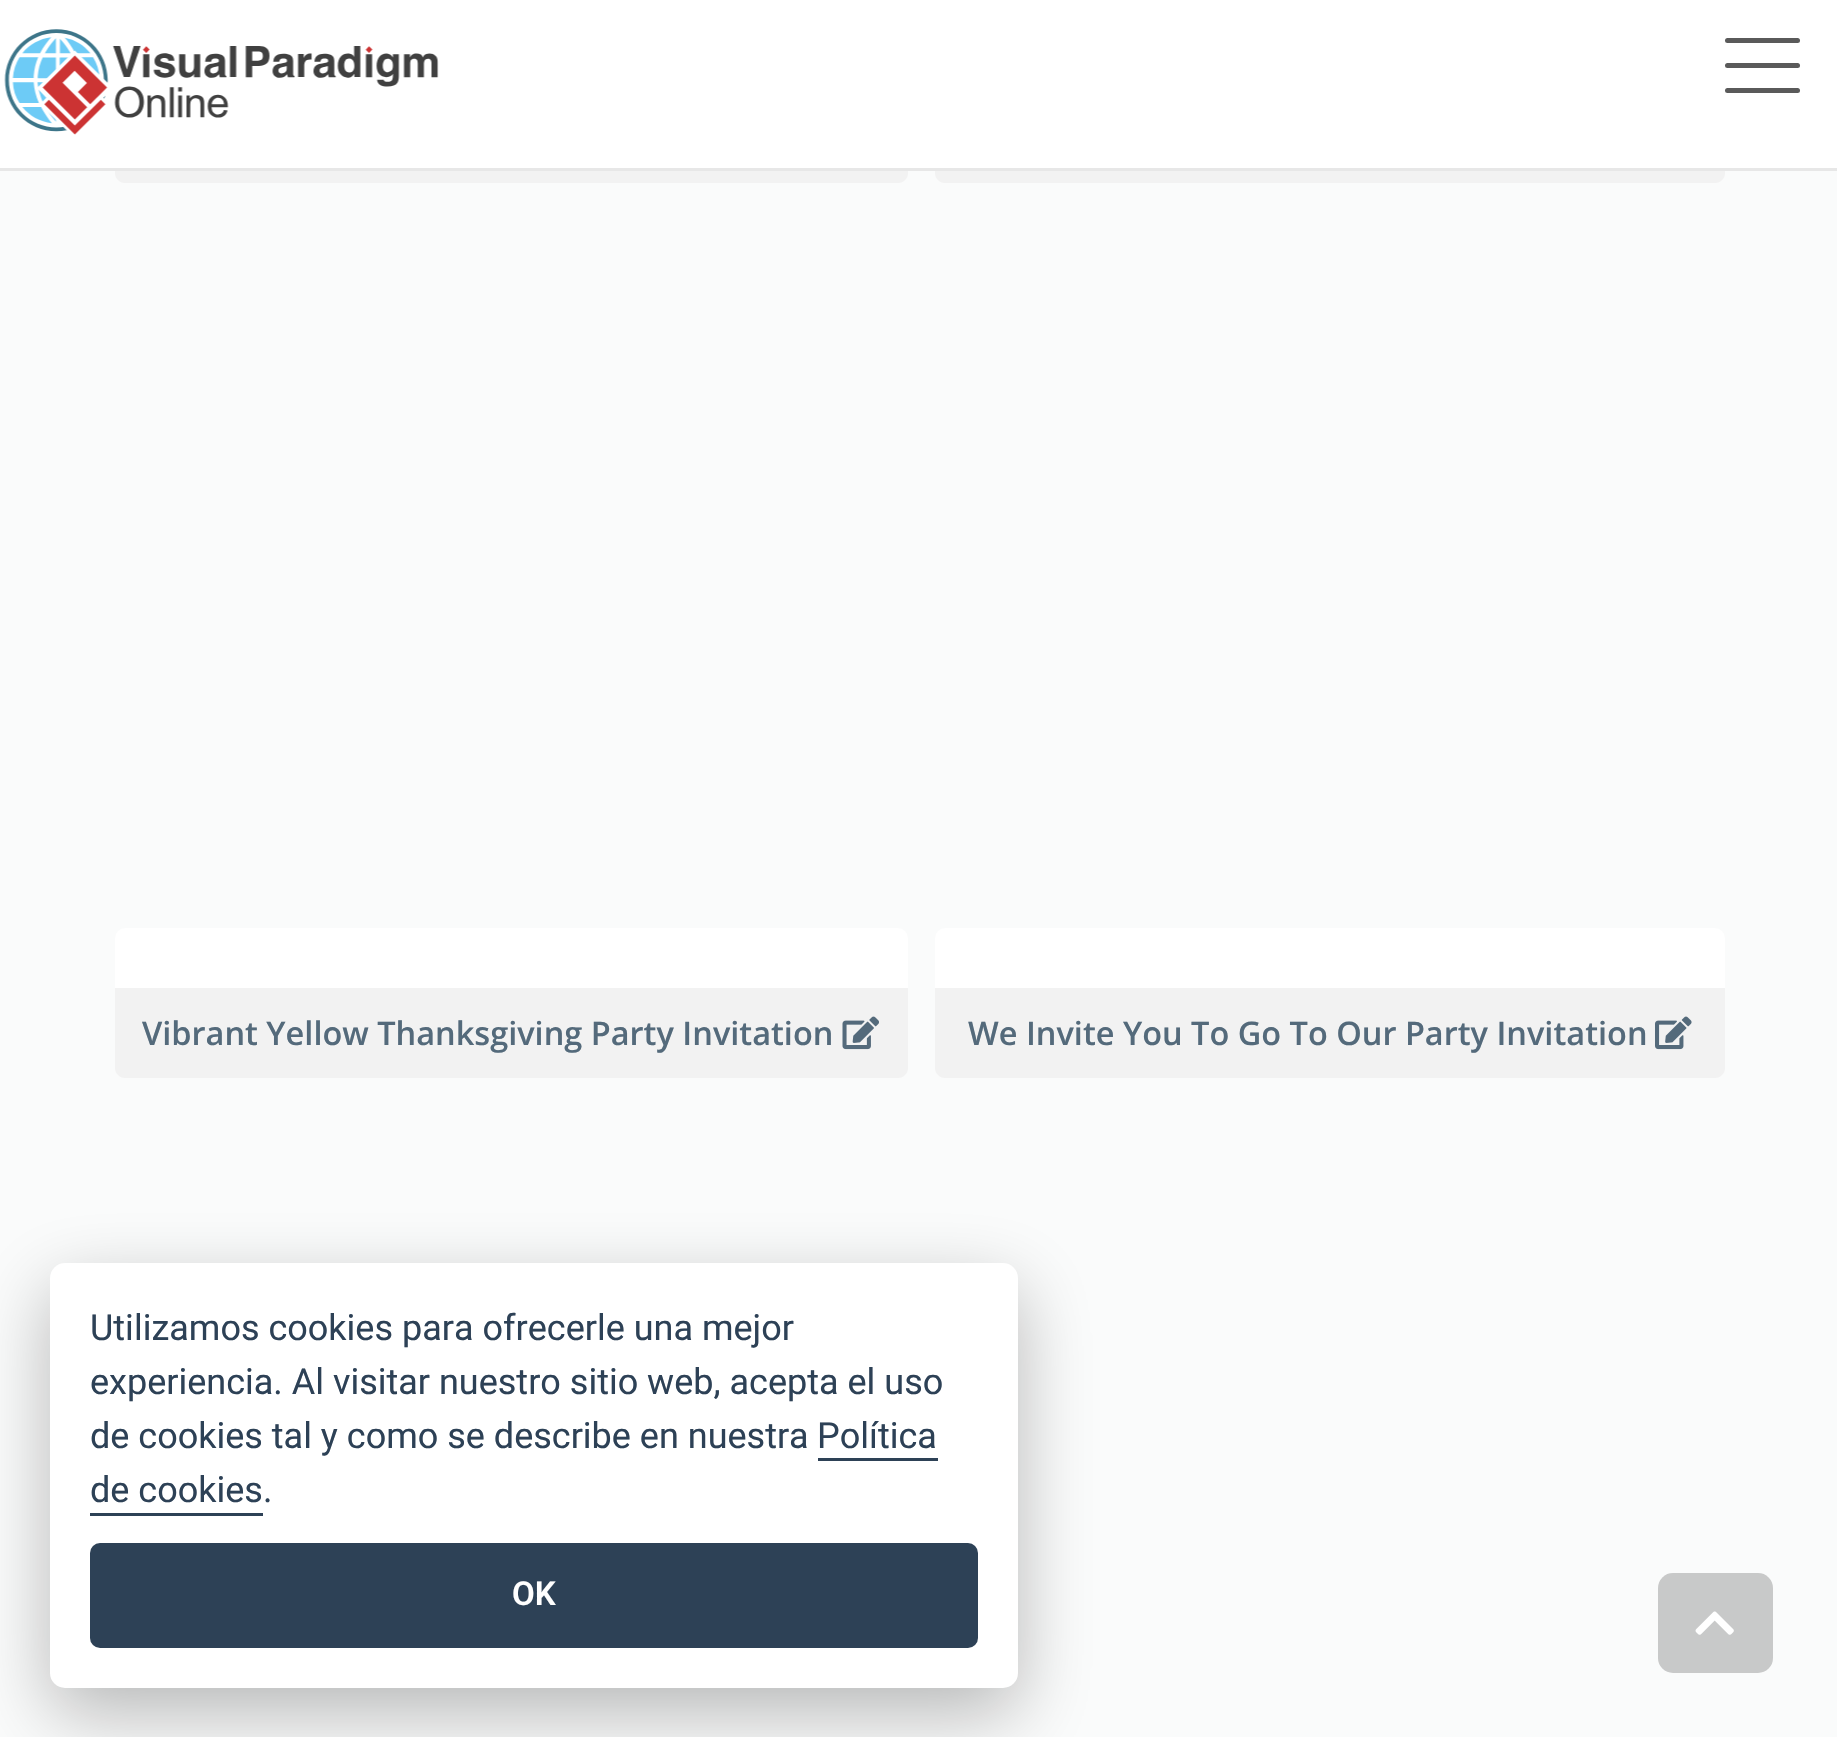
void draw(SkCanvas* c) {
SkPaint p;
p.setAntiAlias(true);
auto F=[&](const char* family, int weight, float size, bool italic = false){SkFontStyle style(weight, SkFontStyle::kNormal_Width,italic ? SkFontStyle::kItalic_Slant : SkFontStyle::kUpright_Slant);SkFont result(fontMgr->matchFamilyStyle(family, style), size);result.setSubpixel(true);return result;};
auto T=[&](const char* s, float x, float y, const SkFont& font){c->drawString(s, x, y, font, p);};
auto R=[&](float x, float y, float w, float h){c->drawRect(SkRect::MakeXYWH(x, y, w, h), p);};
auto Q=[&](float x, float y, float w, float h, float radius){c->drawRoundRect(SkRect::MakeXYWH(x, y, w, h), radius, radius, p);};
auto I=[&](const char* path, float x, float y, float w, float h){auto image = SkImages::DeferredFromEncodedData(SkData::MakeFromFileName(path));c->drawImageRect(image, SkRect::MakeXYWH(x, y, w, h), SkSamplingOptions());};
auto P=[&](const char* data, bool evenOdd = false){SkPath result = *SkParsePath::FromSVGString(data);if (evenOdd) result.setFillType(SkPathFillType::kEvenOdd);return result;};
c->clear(0xfffafbfb);
p.setColor(0xfff2f2f2);
c->drawPath(P("M115 93h793v80c0 5.5-4.5 10-10 10h-773c-5.5 0-10-4.5-10-10z"),p);
c->drawPath(P("M935 93h790v80c0 5.5-4.5 10-10 10h-770c-5.5 0-10-4.5-10-10z"),p);
p.setColor(0xffffffff);
R(0,0,1837,168);
p.setColor(0xffe7e7e7);
R(0,168,1837,3);
I("1.png",4,29,435,106);
p.setColor(0xff5a5a5a);
Q(1725,38,75,5,2.5);
Q(1725,63,75,5,2.5);
Q(1725,88,75,5,2.5);
p.setColor(0xffffffff);
Q(115,928,793,150,10);
p.setColor(0xfff2f2f2);
c->drawPath(P("M115 988h793v80c0 5.5-4.5 10-10 10h-773c-5.5 0-10-4.5-10-10z"),p);
auto f1 = F("Open Sans",600,32.5);
p.setColor(0xff546a7b);
T("Vibrant Yellow Thanksgiving Party Invitation",142,1045,f1);
I("2.png",842,1016,37,34);
p.setColor(0xffffffff);
Q(935,928,790,150,10);
p.setColor(0xfff2f2f2);
c->drawPath(P("M935 988h790v80c0 5.5-4.5 10-10 10h-770c-5.5 0-10-4.5-10-10z"),p);
p.setColor(0xff546a7b);
T("We Invite You To Go To Our Party Invitation",968,1045,f1);
I("3.png",1655,1016,37,34);
p.setColor(0x47020203);
p.setMaskFilter(SkMaskFilter::MakeBlur(kNormal_SkBlurStyle, 37.5));
c->drawRoundRect(SkRect::MakeXYWH(50,1288,968,425),15,15,p);
p.setMaskFilter(nullptr);
p.setColor(0xffffffff);
Q(50,1263,968,425,15);
auto f2 = F("Roboto",400,36);
p.setColor(0xff2d4156);
T("Utilizamos cookies para ofrecerle una mejor",90,1340,f2);
T("experiencia. Al visitar nuestro sitio web, acepta el uso",90,1394,f2);
T("de cookies tal y como se describe en nuestra",90,1448,f2);
T("Política",817,1448,f2);
R(818,1458,120,3);
T("de cookies.",90,1502,f2);
R(90,1513,173,3);
Q(90,1543,888,105,10);
auto f3 = F("Roboto",600,33);
p.setColor(0xffffffff);
T("OK",512,1605,f3);
p.setColor(0xffc8c9c9);
Q(1658,1573,115,100,15);
I("4.png",1695,1611,39,24);
}
